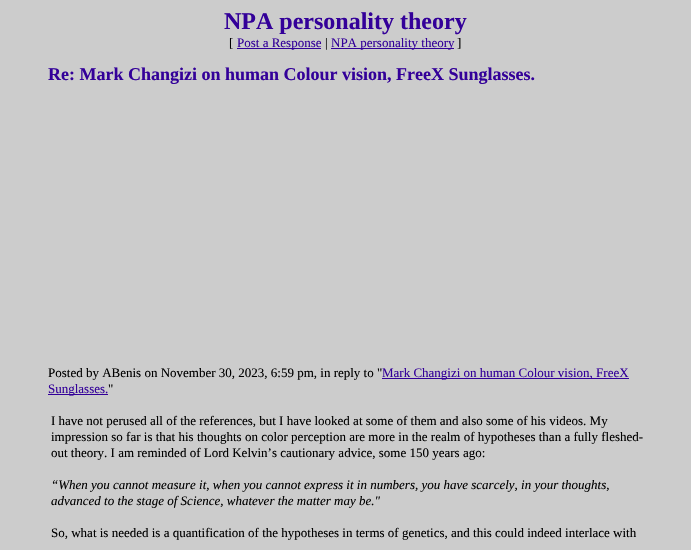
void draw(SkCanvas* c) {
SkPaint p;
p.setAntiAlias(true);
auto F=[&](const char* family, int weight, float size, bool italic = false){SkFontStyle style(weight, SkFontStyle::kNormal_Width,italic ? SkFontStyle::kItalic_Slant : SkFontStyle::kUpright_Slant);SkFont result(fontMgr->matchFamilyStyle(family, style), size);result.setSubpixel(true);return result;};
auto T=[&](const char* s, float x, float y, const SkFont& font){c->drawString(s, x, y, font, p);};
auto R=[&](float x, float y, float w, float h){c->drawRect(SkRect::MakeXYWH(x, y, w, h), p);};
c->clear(0xffcccccc);
auto f1 = F("Liberation Serif",700,24);
p.setColor(0xff330099);
T("NPA personality theory",224,29,f1);
auto f2 = F("Liberation Serif",400,13);
p.setColor(0xff000000);
T("[",229,47,f2);
p.setColor(0xff330099);
R(237,48,84,1);
T("Post a Response",237,47,f2);
p.setColor(0xff000000);
T("|",325,47,f2);
p.setColor(0xff330099);
R(331,48,123,1);
T("NPA personality theory",331,47,f2);
p.setColor(0xff000000);
T("]",457,47,f2);
auto f3 = F("Liberation Serif",700,18);
p.setColor(0xff330099);
T("Re: Mark Changizi on human Colour vision, FreeX Sunglasses.",48,80,f3);
p.setColor(0xff000000);
T("Posted by ABenis on November 30, 2023, 6:59 pm, in reply to \"",48,377,f2);
p.setColor(0xff330099);
R(382,378,247,1);
T("Mark Changizi on human Colour vision, FreeX",382,377,f2);
R(48,394,60,1);
T("Sunglasses.",48,393,f2);
p.setColor(0xff000000);
T("\"",108,393,f2);
T("I have not perused all of the references, but I have looked at some of them and also some of his videos. My",51,425,f2);
T("impression so far is that his thoughts on color perception are more in the realm of hypotheses than a fully fleshed-",51,441,f2);
T("out theory. I am reminded of Lord Kelvin’s cautionary advice, some 150 years ago:",51,457,f2);
auto f4 = F("Liberation Serif",400,13,true);
T("“When you cannot measure it, when you cannot express it in numbers, you have scarcely, in your thoughts,",51,489,f4);
T("advanced to the stage of Science, whatever the matter may be.\"",51,505,f4);
T("So, what is needed is a quantification of the hypotheses in terms of genetics, and this could indeed interlace with",51,537,f2);
}
